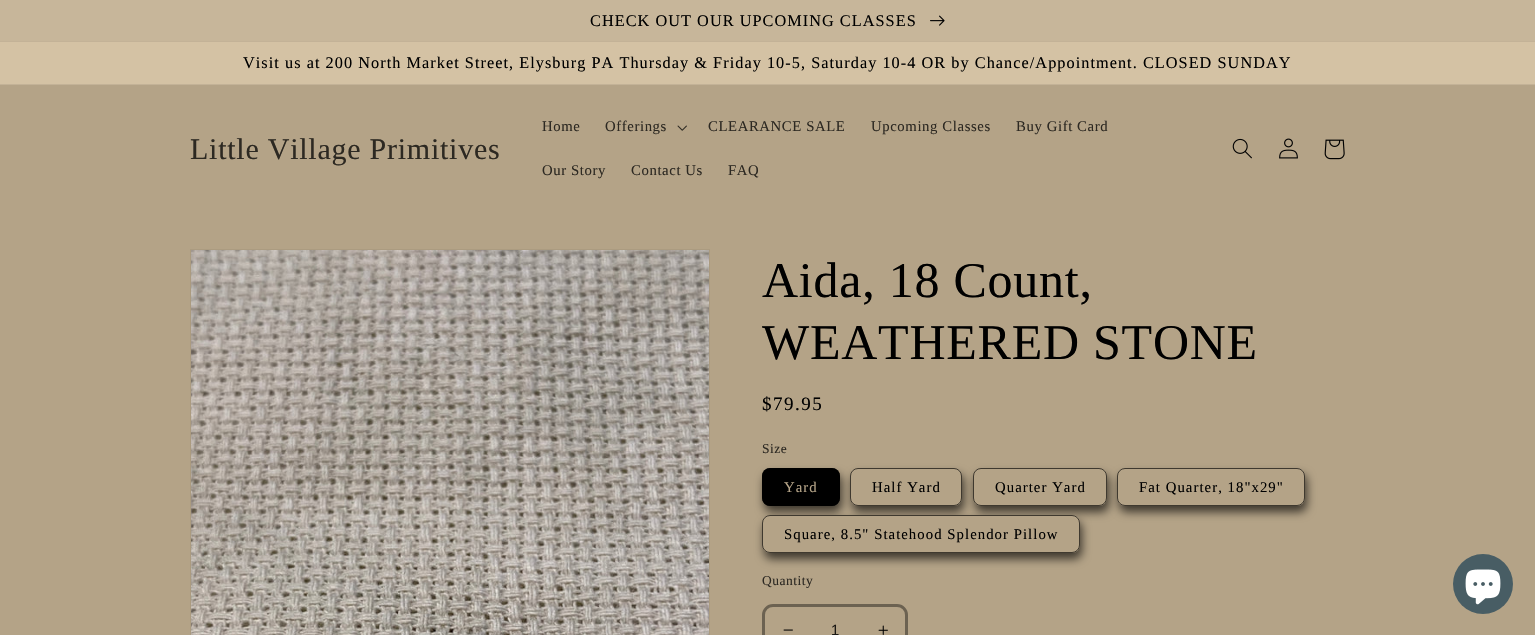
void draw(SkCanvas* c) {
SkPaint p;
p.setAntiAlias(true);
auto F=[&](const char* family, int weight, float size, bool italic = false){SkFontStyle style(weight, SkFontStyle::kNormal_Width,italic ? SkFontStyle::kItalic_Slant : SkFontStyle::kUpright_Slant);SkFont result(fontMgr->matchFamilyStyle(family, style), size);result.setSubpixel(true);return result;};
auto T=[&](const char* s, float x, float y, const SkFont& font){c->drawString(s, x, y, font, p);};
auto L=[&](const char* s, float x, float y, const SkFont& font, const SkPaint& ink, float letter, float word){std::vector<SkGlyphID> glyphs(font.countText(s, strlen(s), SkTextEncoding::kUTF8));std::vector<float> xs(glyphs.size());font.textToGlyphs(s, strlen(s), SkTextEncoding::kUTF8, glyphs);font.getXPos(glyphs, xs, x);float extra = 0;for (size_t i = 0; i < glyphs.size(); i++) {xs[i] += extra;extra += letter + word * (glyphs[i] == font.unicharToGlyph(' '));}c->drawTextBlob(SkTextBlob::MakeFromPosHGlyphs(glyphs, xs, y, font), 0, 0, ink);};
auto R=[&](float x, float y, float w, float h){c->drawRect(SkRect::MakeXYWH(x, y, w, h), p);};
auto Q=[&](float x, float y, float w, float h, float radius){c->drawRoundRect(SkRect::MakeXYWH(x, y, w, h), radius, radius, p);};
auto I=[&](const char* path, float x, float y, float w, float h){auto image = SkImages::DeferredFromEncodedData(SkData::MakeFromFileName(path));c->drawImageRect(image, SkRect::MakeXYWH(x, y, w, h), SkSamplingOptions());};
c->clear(0xffb4a387);
p.setColor(0xffc3b297);
R(0,41,1535,1);
p.setColor(0xffc7b69a);
R(0,0,1535,41);
auto f1 = F("Liberation Serif",400,16.25);
p.setColor(0xff000000);
L("CHECK OUT OUR UPCOMING CLASSES",590,26,f1,p,1.05,0);
I("1.png",930,15,15,11);
p.setColor(0xffd4c2a4);
R(0,42,1535,42);
p.setColor(0xffc3b297);
R(0,84,1535,1);
p.setColor(0xff000000);
L("Visit us at 200 North Market Street, Elysburg PA Thursday & Friday 10-5, Saturday 10-4 OR by Chance/Appointment. CLOSED SUNDAY",243,68,f1,p,1.05,0);
auto f2 = F("Liberation Serif",400,30);
p.setColor(0xff2d2922);
L("Little Village Primitives",190,159,f2,p,.75,0);
auto f3 = F("Liberation Serif",400,14.75);
L("Home",542,131,f3,p,.6,0);
L("Offerings",605,131,f3,p,.6,0);
I("2.png",677,125,10,6);
L("CLEARANCE SALE",708,131,f3,p,.6,0);
L("Upcoming Classes",871,131,f3,p,.6,0);
L("Buy Gift Card",1016,131,f3,p,.6,0);
L("Our Story",542,175,f3,p,.6,0);
L("Contact Us",631,175,f3,p,.6,0);
L("FAQ",728,175,f3,p,.6,0);
I("3.png",1232,138,20,21);
I("4.png",1279,138,19,21);
I("5.png",1324,139,21,21);
p.setStroke(true);
p.setStrokeWidth(1);
p.setColor(0xffab9b80);
c->drawRect(SkRect::MakeXYWH(190.5,249.5,519,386),p);
I("6.png",191,250,518,385);
auto f4 = F("Liberation Serif",400,50);
p.setStroke(false);
p.setColor(0xff000000);
L("Aida, 18 Count,",762,297,f4,p,.75,0);
L("WEATHERED STONE",762,359,f4,p,.75,0);
auto f5 = F("Liberation Serif",400,19);
L("$79.95",762,410,f5,p,1.5,0);
auto f6 = F("Liberation Serif",400,13.5);
p.setColor(0xff2d2922);
L("Size",762,453,f6,p,.5,0);
p.setColor(0xa6000000);
p.setMaskFilter(SkMaskFilter::MakeBlur(kNormal_SkBlurStyle, 5));
c->drawRoundRect(SkRect::MakeXYWH(764,474,78,38),8,8,p);
p.setMaskFilter(nullptr);
p.setMaskFilter(SkMaskFilter::MakeBlur(kNormal_SkBlurStyle, 5));
c->drawRoundRect(SkRect::MakeXYWH(852,474,112,38),8,8,p);
p.setMaskFilter(nullptr);
p.setMaskFilter(SkMaskFilter::MakeBlur(kNormal_SkBlurStyle, 5));
c->drawRoundRect(SkRect::MakeXYWH(764,521,318,38),8,8,p);
p.setMaskFilter(nullptr);
p.setColor(0xff000000);
Q(762,468,78,38,8);
p.setStroke(true);
p.setColor(0xa6000000);
c->drawRoundRect(SkRect::MakeXYWH(762.5,468.5,77,37),7.5,7.5,p);
p.setStroke(false);
p.setColor(0xffb4a387);
L("Yard",784,492,f3,p,1.05,0);
p.setColor(0xa6000000);
p.setMaskFilter(SkMaskFilter::MakeBlur(kNormal_SkBlurStyle, 5));
c->drawRoundRect(SkRect::MakeXYWH(975,474,134,38),8,8,p);
p.setMaskFilter(nullptr);
p.setColor(0xffb4a387);
Q(850,468,112,38,8);
p.setStroke(true);
p.setColor(0xa6000000);
c->drawRoundRect(SkRect::MakeXYWH(850.5,468.5,111,37),7.5,7.5,p);
p.setStroke(false);
p.setColor(0xff000000);
L("Half Yard",872,492,f3,p,1.05,0);
p.setColor(0xa6000000);
p.setMaskFilter(SkMaskFilter::MakeBlur(kNormal_SkBlurStyle, 5));
c->drawRoundRect(SkRect::MakeXYWH(1119,474,188,38),8,8,p);
p.setMaskFilter(nullptr);
p.setColor(0xffb4a387);
Q(973,468,134,38,8);
p.setStroke(true);
p.setColor(0xa6000000);
c->drawRoundRect(SkRect::MakeXYWH(973.5,468.5,133,37),7.5,7.5,p);
p.setStroke(false);
p.setColor(0xff000000);
L("Quarter Yard",995,492,f3,p,1.05,0);
p.setColor(0xffb4a387);
Q(1117,468,188,38,8);
p.setStroke(true);
p.setColor(0xa6000000);
c->drawRoundRect(SkRect::MakeXYWH(1117.5,468.5,187,37),7.5,7.5,p);
p.setStroke(false);
p.setColor(0xff000000);
L("Fat Quarter, 18\"x29\"",1139,492,f3,p,1.05,0);
p.setColor(0xffb4a387);
Q(762,515,318,38,8);
p.setStroke(true);
p.setColor(0xa6000000);
c->drawRoundRect(SkRect::MakeXYWH(762.5,515.5,317,37),7.5,7.5,p);
p.setStroke(false);
p.setColor(0xff000000);
L("Square, 8.5\" Statehood Splendor Pillow",784,539,f3,p,1.05,0);
p.setColor(0xff2d2922);
L("Quantity",762,585,f6,p,.5,0);
I("7.png",783,629,10,2);
I("8.png",878,625,10,10);
p.setStroke(true);
p.setStrokeWidth(3);
p.setColor(0xff6c6251);
c->drawRoundRect(SkRect::MakeXYWH(763.5,605.5,143,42),9.5,9.5,p);
auto f7 = F("Liberation Sans",400,14.75);
p.setStroke(false);
p.setColor(0xff1b1814);
T("1",831,635,f7);
p.setColor(0xff485d64);
c->drawCircle(1483,584,30,p);
I("9.png",1465,569,36,36);
}
